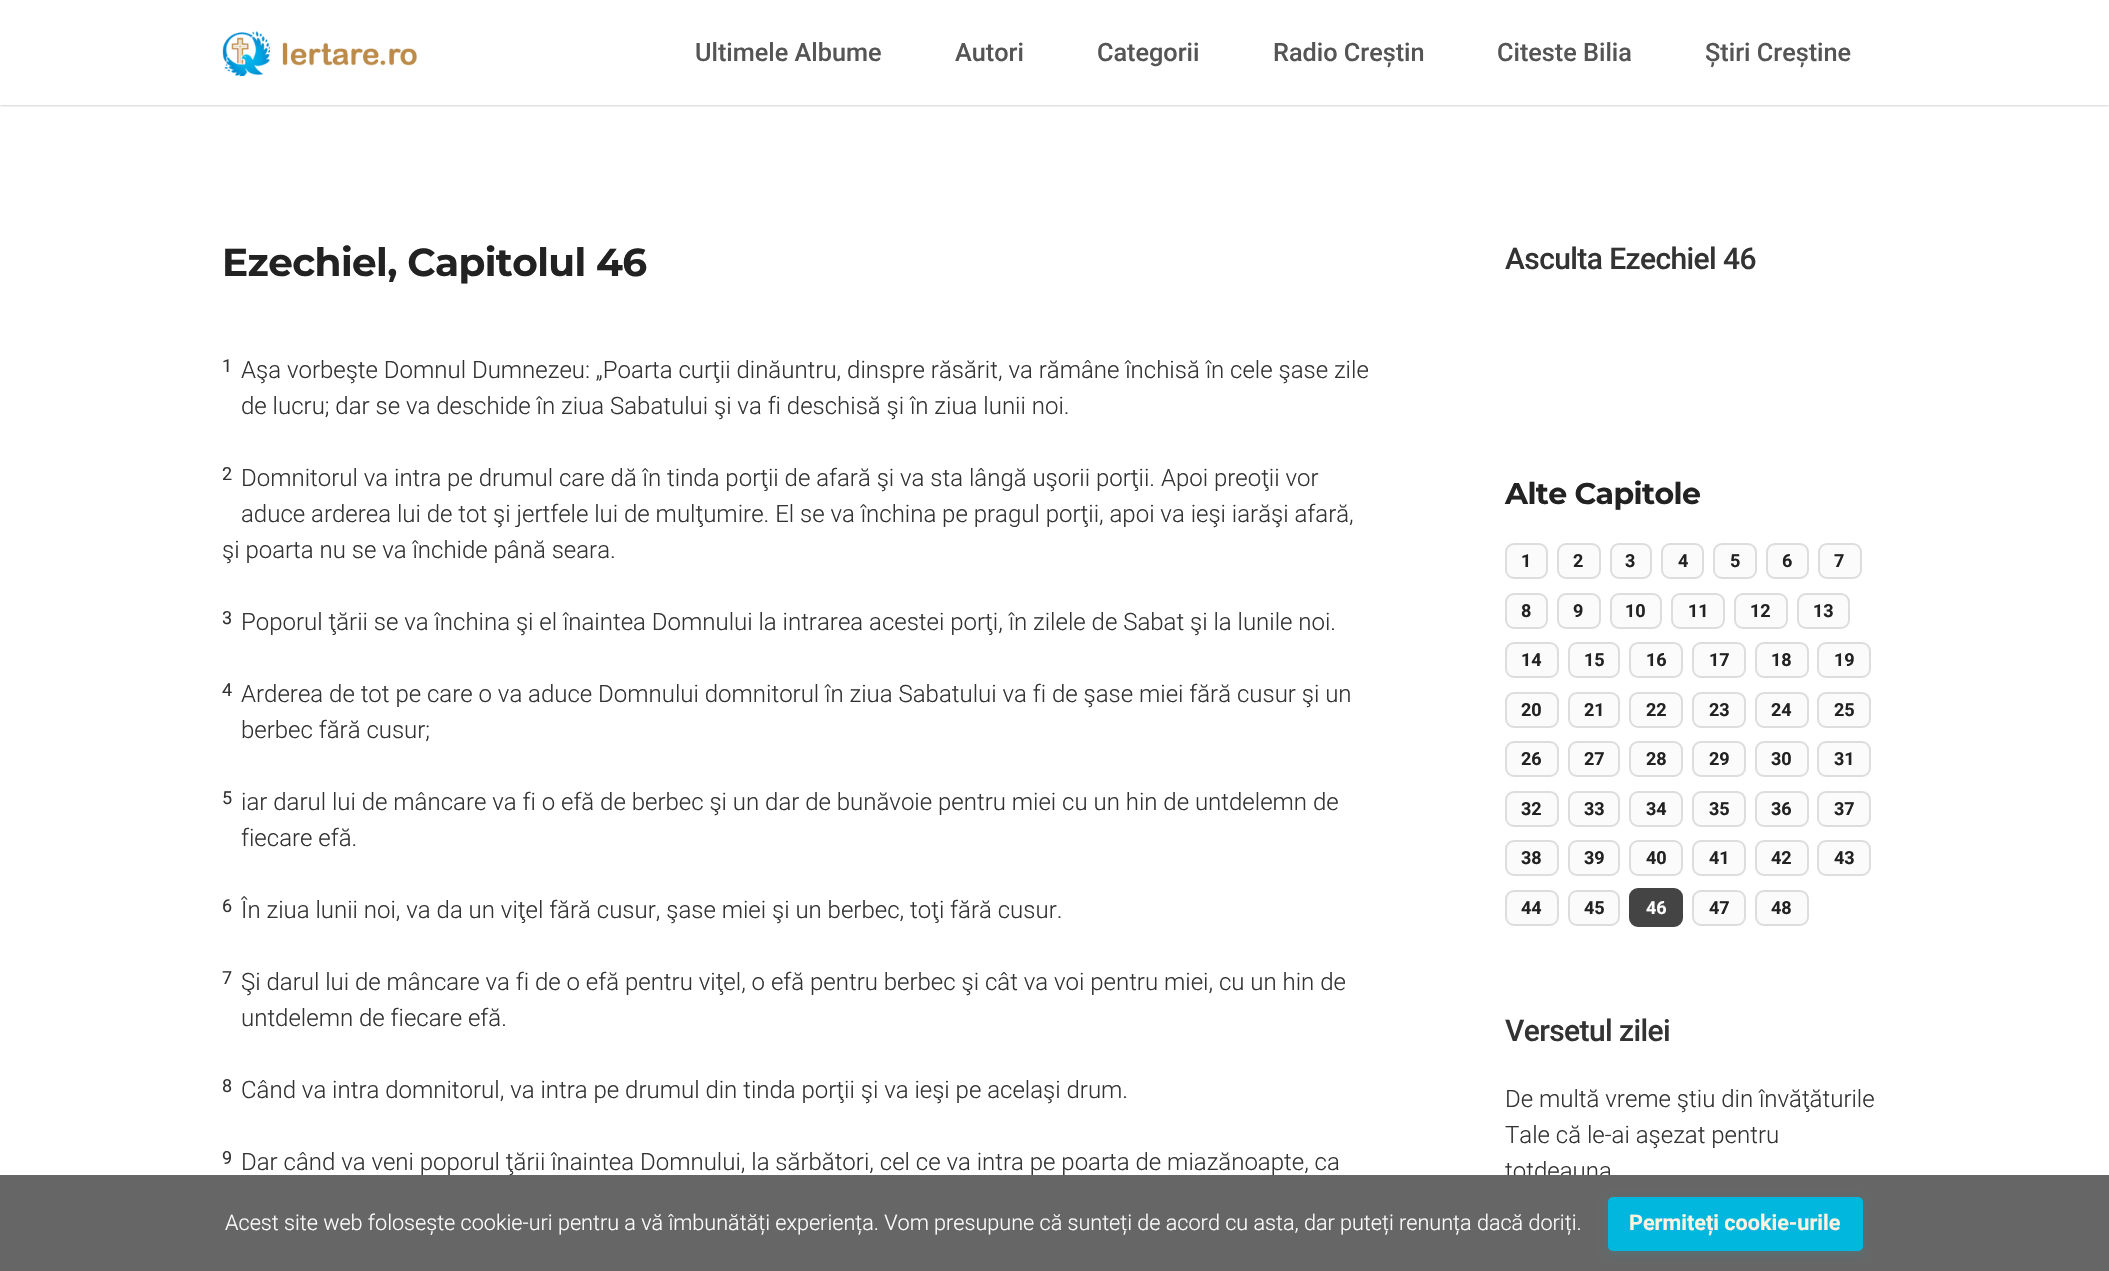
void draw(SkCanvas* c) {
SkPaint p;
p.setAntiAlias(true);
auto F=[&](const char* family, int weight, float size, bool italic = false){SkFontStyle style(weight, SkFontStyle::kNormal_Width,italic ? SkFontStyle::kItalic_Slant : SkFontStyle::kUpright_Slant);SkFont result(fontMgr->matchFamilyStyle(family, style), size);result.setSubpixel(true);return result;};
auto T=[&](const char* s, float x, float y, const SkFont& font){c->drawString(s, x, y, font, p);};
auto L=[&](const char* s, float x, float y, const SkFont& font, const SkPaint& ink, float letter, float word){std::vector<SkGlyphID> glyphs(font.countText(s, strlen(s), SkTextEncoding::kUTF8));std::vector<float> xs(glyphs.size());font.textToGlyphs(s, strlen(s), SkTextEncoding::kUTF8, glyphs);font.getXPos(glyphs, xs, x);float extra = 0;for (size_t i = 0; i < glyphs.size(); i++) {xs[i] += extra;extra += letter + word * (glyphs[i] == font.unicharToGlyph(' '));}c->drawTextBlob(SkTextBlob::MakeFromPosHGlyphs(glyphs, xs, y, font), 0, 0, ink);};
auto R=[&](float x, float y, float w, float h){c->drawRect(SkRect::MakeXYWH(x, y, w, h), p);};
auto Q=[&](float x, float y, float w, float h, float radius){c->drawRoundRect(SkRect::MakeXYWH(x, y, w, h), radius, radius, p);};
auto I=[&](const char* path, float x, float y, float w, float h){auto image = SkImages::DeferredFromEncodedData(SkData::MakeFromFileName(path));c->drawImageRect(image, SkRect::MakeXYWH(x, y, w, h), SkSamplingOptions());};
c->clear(0xffffffff);
c->save();
c->clipRect(SkRect::MakeXYWH(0,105,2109,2));
p.setColor(0x66323232);
p.setMaskFilter(SkMaskFilter::MakeBlur(kNormal_SkBlurStyle, 1.5));
c->drawRect(SkRect::MakeXYWH(0,0,2109,105),p);
p.setMaskFilter(nullptr);
c->restore();
I("1.png",222,31,195,45);
auto f1 = F("Roboto",500,25.25);
p.setColor(0xff555555);
T("Ultimele Albume",695,61,f1);
T("Autori",955,61,f1);
T("Categorii",1097,61,f1);
T("Radio Creștin",1273,61,f1);
T("Citeste Bilia",1497,61,f1);
T("Știri Creștine",1705,61,f1);
auto f2 = F("Montserrat",700,39);
p.setColor(0xff222222);
L("Ezechiel, Capitolul 46",222,276,f2,p,-.6,0);
auto f3 = F("Roboto",400,18);
p.setColor(0xff333333);
T("1",222,372,f3);
auto f4 = F("Roboto",300,24);
T("Aşa vorbeşte Domnul Dumnezeu: „Poarta curţii dinăuntru, dinspre răsărit, va rămâne închisă în cele şase zile",241,378,f4);
T("de lucru; dar se va deschide în ziua Sabatului şi va fi deschisă şi în ziua lunii noi.",241,414,f4);
T("2",222,480,f3);
T("Domnitorul va intra pe drumul care dă în tinda porţii de afară şi va sta lângă uşorii porţii. Apoi preoţii vor",241,486,f4);
T("aduce arderea lui de tot şi jertfele lui de mulţumire. El se va închina pe pragul porţii, apoi va ieşi iarăşi afară,",241,522,f4);
T("şi poarta nu se va închide până seara.",222,558,f4);
T("3",222,624,f3);
T("Poporul ţării se va închina şi el înaintea Domnului la intrarea acestei porţi, în zilele de Sabat şi la lunile noi.",241,630,f4);
T("4",222,696,f3);
T("Arderea de tot pe care o va aduce Domnului domnitorul în ziua Sabatului va fi de şase miei fără cusur şi un",241,702,f4);
T("berbec fără cusur;",241,738,f4);
T("5",222,804,f3);
T("iar darul lui de mâncare va fi o efă de berbec şi un dar de bunăvoie pentru miei cu un hin de untdelemn de",241,810,f4);
T("fiecare efă.",241,846,f4);
T("6",222,912,f3);
T("În ziua lunii noi, va da un viţel fără cusur, şase miei şi un berbec, toţi fără cusur.",241,918,f4);
T("7",222,984,f3);
T("Şi darul lui de mâncare va fi de o efă pentru viţel, o efă pentru berbec şi cât va voi pentru miei, cu un hin de",241,990,f4);
T("untdelemn de fiecare efă.",241,1026,f4);
T("8",222,1092,f3);
T("Când va intra domnitorul, va intra pe drumul din tinda porţii şi va ieşi pe acelaşi drum.",241,1098,f4);
T("9",222,1164,f3);
T("Dar când va veni poporul ţării înaintea Domnului, la sărbători, cel ce va intra pe poarta de miazănoapte, ca",241,1170,f4);
auto f5 = F("Roboto",500,30);
L("Asculta Ezechiel 46",1505,269,f5,p,-.6,0);
auto f6 = F("Montserrat",700,30);
p.setColor(0xff222222);
L("Alte Capitole",1505,504,f6,p,-.6,0);
p.setColor(0xfffbfbfb);
c->drawRoundRect(SkRect::MakeXYWH(1506,544,41,34),8,8,p);
p.setStroke(true);
p.setStrokeWidth(2);
p.setColor(0xffdddddd);
c->drawRoundRect(SkRect::MakeXYWH(1506,544,41,34),8,8,p);
auto f7 = F("Roboto",700,18);
p.setStroke(false);
p.setColor(0xff222222);
T("1",1521,567,f7);
p.setColor(0xfffbfbfb);
c->drawRoundRect(SkRect::MakeXYWH(1558,544,42,34),8,8,p);
p.setStroke(true);
p.setColor(0xffdddddd);
c->drawRoundRect(SkRect::MakeXYWH(1558,544,42,34),8,8,p);
p.setStroke(false);
p.setColor(0xff222222);
T("2",1573,567,f7);
p.setColor(0xfffbfbfb);
c->drawRoundRect(SkRect::MakeXYWH(1611,544,40,34),8,8,p);
p.setStroke(true);
p.setColor(0xffdddddd);
c->drawRoundRect(SkRect::MakeXYWH(1611,544,40,34),8,8,p);
p.setStroke(false);
p.setColor(0xff222222);
T("3",1625,567,f7);
p.setColor(0xfffbfbfb);
c->drawRoundRect(SkRect::MakeXYWH(1662,544,41,34),8,8,p);
p.setStroke(true);
p.setColor(0xffdddddd);
c->drawRoundRect(SkRect::MakeXYWH(1662,544,41,34),8,8,p);
p.setStroke(false);
p.setColor(0xff222222);
T("4",1678,567,f7);
p.setColor(0xfffbfbfb);
c->drawRoundRect(SkRect::MakeXYWH(1714,544,42,34),8,8,p);
p.setStroke(true);
p.setColor(0xffdddddd);
c->drawRoundRect(SkRect::MakeXYWH(1714,544,42,34),8,8,p);
p.setStroke(false);
p.setColor(0xff222222);
T("5",1730,567,f7);
p.setColor(0xfffbfbfb);
c->drawRoundRect(SkRect::MakeXYWH(1767,544,41,34),8,8,p);
p.setStroke(true);
p.setColor(0xffdddddd);
c->drawRoundRect(SkRect::MakeXYWH(1767,544,41,34),8,8,p);
p.setStroke(false);
p.setColor(0xff222222);
T("6",1782,567,f7);
p.setColor(0xfffbfbfb);
c->drawRoundRect(SkRect::MakeXYWH(1819,544,42,34),8,8,p);
p.setStroke(true);
p.setColor(0xffdddddd);
c->drawRoundRect(SkRect::MakeXYWH(1819,544,42,34),8,8,p);
p.setStroke(false);
p.setColor(0xff222222);
T("7",1834,567,f7);
p.setColor(0xfffbfbfb);
c->drawRoundRect(SkRect::MakeXYWH(1506,594,41,34),8,8,p);
p.setStroke(true);
p.setColor(0xffdddddd);
c->drawRoundRect(SkRect::MakeXYWH(1506,594,41,34),8,8,p);
p.setStroke(false);
p.setColor(0xff222222);
T("8",1521,617,f7);
p.setColor(0xfffbfbfb);
c->drawRoundRect(SkRect::MakeXYWH(1558,594,42,34),8,8,p);
p.setStroke(true);
p.setColor(0xffdddddd);
c->drawRoundRect(SkRect::MakeXYWH(1558,594,42,34),8,8,p);
p.setStroke(false);
p.setColor(0xff222222);
T("9",1573,617,f7);
p.setColor(0xfffbfbfb);
c->drawRoundRect(SkRect::MakeXYWH(1611,594,50,34),8,8,p);
p.setStroke(true);
p.setColor(0xffdddddd);
c->drawRoundRect(SkRect::MakeXYWH(1611,594,50,34),8,8,p);
p.setStroke(false);
p.setColor(0xff222222);
T("10",1625,617,f7);
p.setColor(0xfffbfbfb);
c->drawRoundRect(SkRect::MakeXYWH(1672,594,52,34),8,8,p);
p.setStroke(true);
p.setColor(0xffdddddd);
c->drawRoundRect(SkRect::MakeXYWH(1672,594,52,34),8,8,p);
p.setStroke(false);
p.setColor(0xff222222);
T("11",1688,617,f7);
p.setColor(0xfffbfbfb);
c->drawRoundRect(SkRect::MakeXYWH(1735,594,52,34),8,8,p);
p.setStroke(true);
p.setColor(0xffdddddd);
c->drawRoundRect(SkRect::MakeXYWH(1735,594,52,34),8,8,p);
p.setStroke(false);
p.setColor(0xff222222);
T("12",1750,617,f7);
p.setColor(0xfffbfbfb);
c->drawRoundRect(SkRect::MakeXYWH(1798,594,51,34),8,8,p);
p.setStroke(true);
p.setColor(0xffdddddd);
c->drawRoundRect(SkRect::MakeXYWH(1798,594,51,34),8,8,p);
p.setStroke(false);
p.setColor(0xff222222);
T("13",1813,617,f7);
p.setColor(0xfffbfbfb);
c->drawRoundRect(SkRect::MakeXYWH(1506,643,52,34),8,8,p);
p.setStroke(true);
p.setColor(0xffdddddd);
c->drawRoundRect(SkRect::MakeXYWH(1506,643,52,34),8,8,p);
p.setStroke(false);
p.setColor(0xff222222);
T("14",1521,666,f7);
p.setColor(0xfffbfbfb);
c->drawRoundRect(SkRect::MakeXYWH(1569,643,50,34),8,8,p);
p.setStroke(true);
p.setColor(0xffdddddd);
c->drawRoundRect(SkRect::MakeXYWH(1569,643,50,34),8,8,p);
p.setStroke(false);
p.setColor(0xff222222);
T("15",1584,666,f7);
p.setColor(0xfffbfbfb);
c->drawRoundRect(SkRect::MakeXYWH(1630,643,52,34),8,8,p);
p.setStroke(true);
p.setColor(0xffdddddd);
c->drawRoundRect(SkRect::MakeXYWH(1630,643,52,34),8,8,p);
p.setStroke(false);
p.setColor(0xff222222);
T("16",1646,666,f7);
p.setColor(0xfffbfbfb);
c->drawRoundRect(SkRect::MakeXYWH(1693,643,52,34),8,8,p);
p.setStroke(true);
p.setColor(0xffdddddd);
c->drawRoundRect(SkRect::MakeXYWH(1693,643,52,34),8,8,p);
p.setStroke(false);
p.setColor(0xff222222);
T("17",1709,666,f7);
p.setColor(0xfffbfbfb);
c->drawRoundRect(SkRect::MakeXYWH(1756,643,52,34),8,8,p);
p.setStroke(true);
p.setColor(0xffdddddd);
c->drawRoundRect(SkRect::MakeXYWH(1756,643,52,34),8,8,p);
p.setStroke(false);
p.setColor(0xff222222);
T("18",1771,666,f7);
p.setColor(0xfffbfbfb);
c->drawRoundRect(SkRect::MakeXYWH(1818,643,52,34),8,8,p);
p.setStroke(true);
p.setColor(0xffdddddd);
c->drawRoundRect(SkRect::MakeXYWH(1818,643,52,34),8,8,p);
p.setStroke(false);
p.setColor(0xff222222);
T("19",1834,666,f7);
p.setColor(0xfffbfbfb);
c->drawRoundRect(SkRect::MakeXYWH(1506,693,52,34),8,8,p);
p.setStroke(true);
p.setColor(0xffdddddd);
c->drawRoundRect(SkRect::MakeXYWH(1506,693,52,34),8,8,p);
p.setStroke(false);
p.setColor(0xff222222);
T("20",1521,716,f7);
p.setColor(0xfffbfbfb);
c->drawRoundRect(SkRect::MakeXYWH(1569,693,50,34),8,8,p);
p.setStroke(true);
p.setColor(0xffdddddd);
c->drawRoundRect(SkRect::MakeXYWH(1569,693,50,34),8,8,p);
p.setStroke(false);
p.setColor(0xff222222);
T("21",1584,716,f7);
p.setColor(0xfffbfbfb);
c->drawRoundRect(SkRect::MakeXYWH(1630,693,52,34),8,8,p);
p.setStroke(true);
p.setColor(0xffdddddd);
c->drawRoundRect(SkRect::MakeXYWH(1630,693,52,34),8,8,p);
p.setStroke(false);
p.setColor(0xff222222);
T("22",1646,716,f7);
p.setColor(0xfffbfbfb);
c->drawRoundRect(SkRect::MakeXYWH(1693,693,52,34),8,8,p);
p.setStroke(true);
p.setColor(0xffdddddd);
c->drawRoundRect(SkRect::MakeXYWH(1693,693,52,34),8,8,p);
p.setStroke(false);
p.setColor(0xff222222);
T("23",1709,716,f7);
p.setColor(0xfffbfbfb);
c->drawRoundRect(SkRect::MakeXYWH(1756,693,52,34),8,8,p);
p.setStroke(true);
p.setColor(0xffdddddd);
c->drawRoundRect(SkRect::MakeXYWH(1756,693,52,34),8,8,p);
p.setStroke(false);
p.setColor(0xff222222);
T("24",1771,716,f7);
p.setColor(0xfffbfbfb);
c->drawRoundRect(SkRect::MakeXYWH(1818,693,52,34),8,8,p);
p.setStroke(true);
p.setColor(0xffdddddd);
c->drawRoundRect(SkRect::MakeXYWH(1818,693,52,34),8,8,p);
p.setStroke(false);
p.setColor(0xff222222);
T("25",1834,716,f7);
p.setColor(0xfffbfbfb);
c->drawRoundRect(SkRect::MakeXYWH(1506,742,52,34),8,8,p);
p.setStroke(true);
p.setColor(0xffdddddd);
c->drawRoundRect(SkRect::MakeXYWH(1506,742,52,34),8,8,p);
p.setStroke(false);
p.setColor(0xff222222);
T("26",1521,765,f7);
p.setColor(0xfffbfbfb);
c->drawRoundRect(SkRect::MakeXYWH(1569,742,50,34),8,8,p);
p.setStroke(true);
p.setColor(0xffdddddd);
c->drawRoundRect(SkRect::MakeXYWH(1569,742,50,34),8,8,p);
p.setStroke(false);
p.setColor(0xff222222);
T("27",1584,765,f7);
p.setColor(0xfffbfbfb);
c->drawRoundRect(SkRect::MakeXYWH(1630,742,52,34),8,8,p);
p.setStroke(true);
p.setColor(0xffdddddd);
c->drawRoundRect(SkRect::MakeXYWH(1630,742,52,34),8,8,p);
p.setStroke(false);
p.setColor(0xff222222);
T("28",1646,765,f7);
p.setColor(0xfffbfbfb);
c->drawRoundRect(SkRect::MakeXYWH(1693,742,52,34),8,8,p);
p.setStroke(true);
p.setColor(0xffdddddd);
c->drawRoundRect(SkRect::MakeXYWH(1693,742,52,34),8,8,p);
p.setStroke(false);
p.setColor(0xff222222);
T("29",1709,765,f7);
p.setColor(0xfffbfbfb);
c->drawRoundRect(SkRect::MakeXYWH(1756,742,52,34),8,8,p);
p.setStroke(true);
p.setColor(0xffdddddd);
c->drawRoundRect(SkRect::MakeXYWH(1756,742,52,34),8,8,p);
p.setStroke(false);
p.setColor(0xff222222);
T("30",1771,765,f7);
p.setColor(0xfffbfbfb);
c->drawRoundRect(SkRect::MakeXYWH(1818,742,52,34),8,8,p);
p.setStroke(true);
p.setColor(0xffdddddd);
c->drawRoundRect(SkRect::MakeXYWH(1818,742,52,34),8,8,p);
p.setStroke(false);
p.setColor(0xff222222);
T("31",1834,765,f7);
p.setColor(0xfffbfbfb);
c->drawRoundRect(SkRect::MakeXYWH(1506,792,52,34),8,8,p);
p.setStroke(true);
p.setColor(0xffdddddd);
c->drawRoundRect(SkRect::MakeXYWH(1506,792,52,34),8,8,p);
p.setStroke(false);
p.setColor(0xff222222);
T("32",1521,815,f7);
p.setColor(0xfffbfbfb);
c->drawRoundRect(SkRect::MakeXYWH(1569,792,50,34),8,8,p);
p.setStroke(true);
p.setColor(0xffdddddd);
c->drawRoundRect(SkRect::MakeXYWH(1569,792,50,34),8,8,p);
p.setStroke(false);
p.setColor(0xff222222);
T("33",1584,815,f7);
p.setColor(0xfffbfbfb);
c->drawRoundRect(SkRect::MakeXYWH(1630,792,52,34),8,8,p);
p.setStroke(true);
p.setColor(0xffdddddd);
c->drawRoundRect(SkRect::MakeXYWH(1630,792,52,34),8,8,p);
p.setStroke(false);
p.setColor(0xff222222);
T("34",1646,815,f7);
p.setColor(0xfffbfbfb);
c->drawRoundRect(SkRect::MakeXYWH(1693,792,52,34),8,8,p);
p.setStroke(true);
p.setColor(0xffdddddd);
c->drawRoundRect(SkRect::MakeXYWH(1693,792,52,34),8,8,p);
p.setStroke(false);
p.setColor(0xff222222);
T("35",1709,815,f7);
p.setColor(0xfffbfbfb);
c->drawRoundRect(SkRect::MakeXYWH(1756,792,52,34),8,8,p);
p.setStroke(true);
p.setColor(0xffdddddd);
c->drawRoundRect(SkRect::MakeXYWH(1756,792,52,34),8,8,p);
p.setStroke(false);
p.setColor(0xff222222);
T("36",1771,815,f7);
p.setColor(0xfffbfbfb);
c->drawRoundRect(SkRect::MakeXYWH(1818,792,52,34),8,8,p);
p.setStroke(true);
p.setColor(0xffdddddd);
c->drawRoundRect(SkRect::MakeXYWH(1818,792,52,34),8,8,p);
p.setStroke(false);
p.setColor(0xff222222);
T("37",1834,815,f7);
p.setColor(0xfffbfbfb);
c->drawRoundRect(SkRect::MakeXYWH(1506,841,52,34),8,8,p);
p.setStroke(true);
p.setColor(0xffdddddd);
c->drawRoundRect(SkRect::MakeXYWH(1506,841,52,34),8,8,p);
p.setStroke(false);
p.setColor(0xff222222);
T("38",1521,864,f7);
p.setColor(0xfffbfbfb);
c->drawRoundRect(SkRect::MakeXYWH(1569,841,50,34),8,8,p);
p.setStroke(true);
p.setColor(0xffdddddd);
c->drawRoundRect(SkRect::MakeXYWH(1569,841,50,34),8,8,p);
p.setStroke(false);
p.setColor(0xff222222);
T("39",1584,864,f7);
p.setColor(0xfffbfbfb);
c->drawRoundRect(SkRect::MakeXYWH(1630,841,52,34),8,8,p);
p.setStroke(true);
p.setColor(0xffdddddd);
c->drawRoundRect(SkRect::MakeXYWH(1630,841,52,34),8,8,p);
p.setStroke(false);
p.setColor(0xff222222);
T("40",1646,864,f7);
p.setColor(0xfffbfbfb);
c->drawRoundRect(SkRect::MakeXYWH(1693,841,52,34),8,8,p);
p.setStroke(true);
p.setColor(0xffdddddd);
c->drawRoundRect(SkRect::MakeXYWH(1693,841,52,34),8,8,p);
p.setStroke(false);
p.setColor(0xff222222);
T("41",1709,864,f7);
p.setColor(0xfffbfbfb);
c->drawRoundRect(SkRect::MakeXYWH(1756,841,52,34),8,8,p);
p.setStroke(true);
p.setColor(0xffdddddd);
c->drawRoundRect(SkRect::MakeXYWH(1756,841,52,34),8,8,p);
p.setStroke(false);
p.setColor(0xff222222);
T("42",1771,864,f7);
p.setColor(0xfffbfbfb);
c->drawRoundRect(SkRect::MakeXYWH(1818,841,52,34),8,8,p);
p.setStroke(true);
p.setColor(0xffdddddd);
c->drawRoundRect(SkRect::MakeXYWH(1818,841,52,34),8,8,p);
p.setStroke(false);
p.setColor(0xff222222);
T("43",1834,864,f7);
p.setColor(0xfffbfbfb);
c->drawRoundRect(SkRect::MakeXYWH(1506,891,52,34),8,8,p);
p.setStroke(true);
p.setColor(0xffdddddd);
c->drawRoundRect(SkRect::MakeXYWH(1506,891,52,34),8,8,p);
p.setStroke(false);
p.setColor(0xff222222);
T("44",1521,914,f7);
p.setColor(0xfffbfbfb);
c->drawRoundRect(SkRect::MakeXYWH(1569,891,50,34),8,8,p);
p.setStroke(true);
p.setColor(0xffdddddd);
c->drawRoundRect(SkRect::MakeXYWH(1569,891,50,34),8,8,p);
p.setStroke(false);
p.setColor(0xff222222);
T("45",1584,914,f7);
p.setColor(0xff444444);
c->drawRoundRect(SkRect::MakeXYWH(1630,889,52,37),8,8,p);
p.setStroke(true);
c->drawRoundRect(SkRect::MakeXYWH(1630,889,52,37),8,8,p);
p.setStroke(false);
p.setColor(0xffffffff);
T("46",1646,914,f7);
p.setColor(0xfffbfbfb);
c->drawRoundRect(SkRect::MakeXYWH(1693,891,52,34),8,8,p);
p.setStroke(true);
p.setColor(0xffdddddd);
c->drawRoundRect(SkRect::MakeXYWH(1693,891,52,34),8,8,p);
p.setStroke(false);
p.setColor(0xff222222);
T("47",1709,914,f7);
p.setColor(0xfffbfbfb);
c->drawRoundRect(SkRect::MakeXYWH(1756,891,52,34),8,8,p);
p.setStroke(true);
p.setColor(0xffdddddd);
c->drawRoundRect(SkRect::MakeXYWH(1756,891,52,34),8,8,p);
p.setStroke(false);
p.setColor(0xff222222);
T("48",1771,914,f7);
p.setColor(0xff333333);
L("Versetul zilei",1505,1041,f5,p,-.6,0);
T("De multă vreme ştiu din învăţăturile",1505,1107,f4);
T("Tale că le-ai aşezat pentru",1505,1143,f4);
T("totdeauna",1505,1179,f4);
p.setColor(0xff666666);
R(0,1175,2109,96);
auto f8 = F("Roboto",300,21.6);
p.setColor(0xffffffff);
T("Acest site web folosește cookie-uri pentru a vă îmbunătăți experiența. Vom presupune că sunteți de acord cu asta, dar puteți renunța dacă doriți.",225,1230,f8);
p.setColor(0x2601b7de);
p.setMaskFilter(SkMaskFilter::MakeBlur(kNormal_SkBlurStyle, 4));
c->drawRoundRect(SkRect::MakeXYWH(1608,1200,255,54),5,5,p);
p.setMaskFilter(nullptr);
p.setColor(0xff01b7de);
Q(1608,1197,255,54,5);
auto f9 = F("Roboto",700,21.6);
p.setColor(0xfffff2e0);
T("Permiteți cookie-urile",1629,1230,f9);
}
